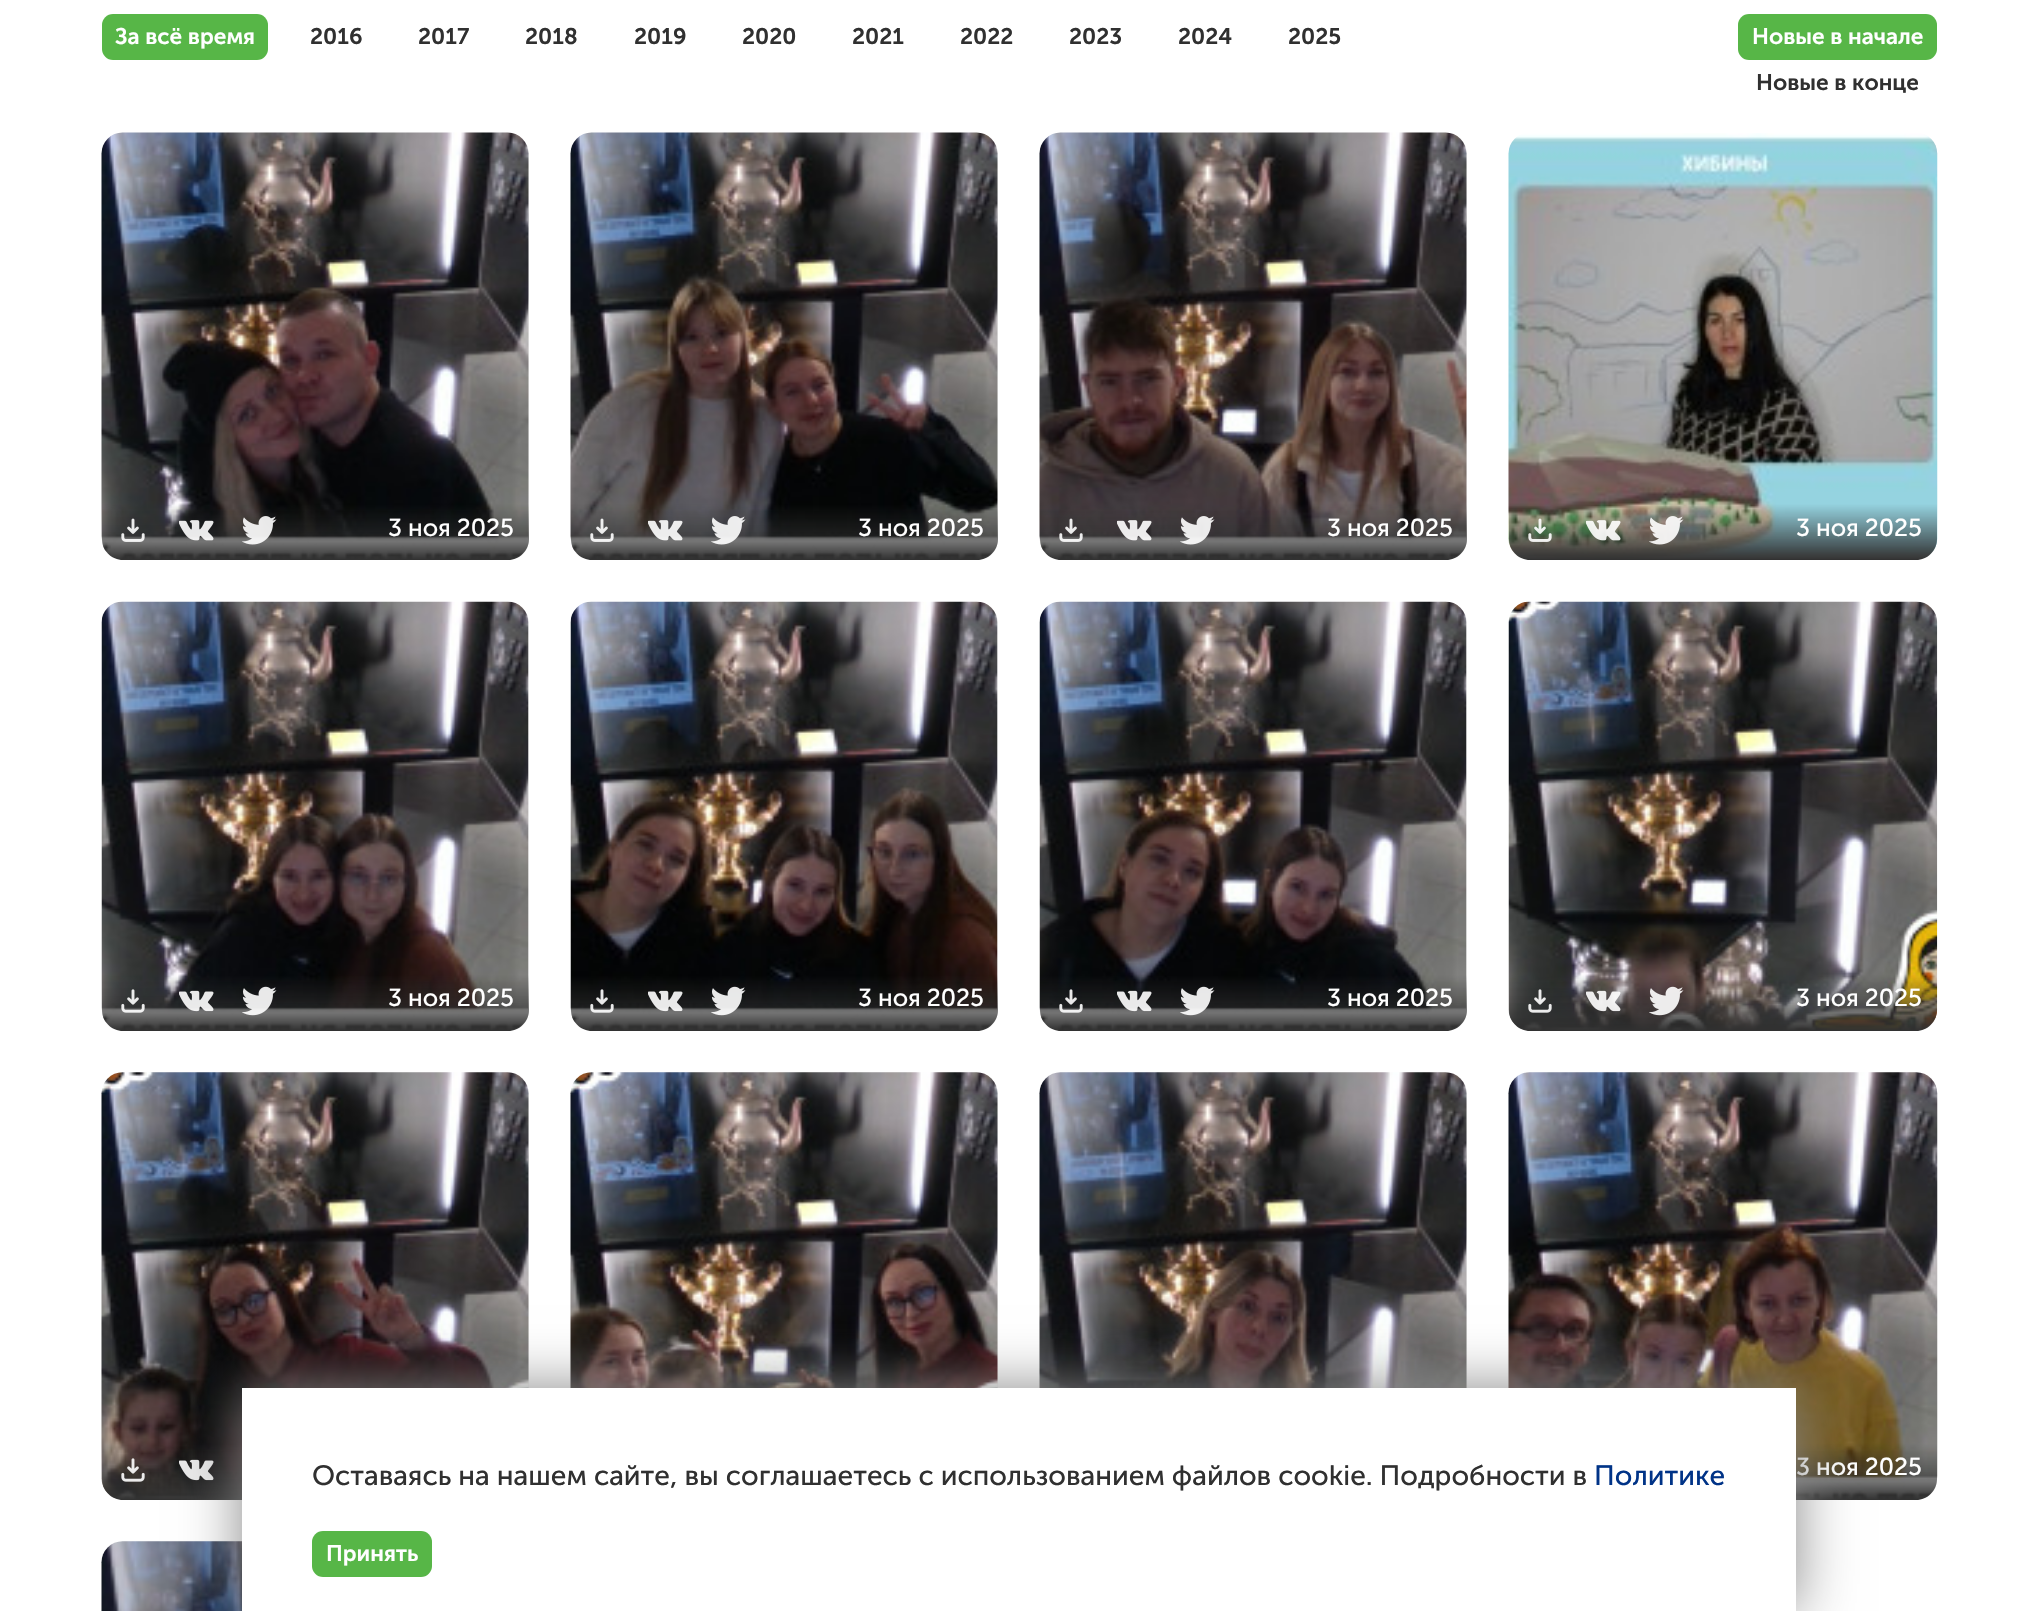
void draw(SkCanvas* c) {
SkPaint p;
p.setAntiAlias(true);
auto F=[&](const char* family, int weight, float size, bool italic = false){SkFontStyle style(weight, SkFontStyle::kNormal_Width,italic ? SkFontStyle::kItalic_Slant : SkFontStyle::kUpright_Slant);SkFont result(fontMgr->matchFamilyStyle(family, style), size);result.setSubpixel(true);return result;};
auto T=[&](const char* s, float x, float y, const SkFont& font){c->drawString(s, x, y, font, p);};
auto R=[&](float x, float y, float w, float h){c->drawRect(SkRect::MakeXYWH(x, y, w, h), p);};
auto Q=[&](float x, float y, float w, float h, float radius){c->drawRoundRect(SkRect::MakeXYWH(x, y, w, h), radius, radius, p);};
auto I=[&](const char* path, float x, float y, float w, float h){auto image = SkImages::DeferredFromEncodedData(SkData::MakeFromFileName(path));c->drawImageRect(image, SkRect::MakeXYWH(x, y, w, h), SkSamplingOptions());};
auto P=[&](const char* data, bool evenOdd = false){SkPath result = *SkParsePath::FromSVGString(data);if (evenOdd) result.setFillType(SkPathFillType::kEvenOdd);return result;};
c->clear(0xffffffff);
p.setColor(0xff57b647);
Q(102,14,166,46,11);
auto f1 = F("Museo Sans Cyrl",600,22.5);
p.setColor(0xffffffff);
T("За всё время",115,44,f1);
p.setColor(0xff303030);
T("2016",310,44,f1);
T("2017",418,44,f1);
T("2018",525,44,f1);
T("2019",634,44,f1);
T("2020",742,44,f1);
T("2021",852,44,f1);
T("2022",960,44,f1);
T("2023",1069,44,f1);
T("2024",1178,44,f1);
T("2025",1288,44,f1);
p.setColor(0xff57b647);
Q(1738,14,199,46,11);
p.setColor(0xffffffff);
T("Новые в начале",1752,44,f1);
p.setColor(0xff303030);
T("Новые в конце",1756,90,f1);
p.setColor(0xfff3f3f3);
Q(102,133,427,427,21);
I("1.png",101,132,428,428);
{
const SkColor colors[] = {0xff303030,0x00303030};
const float stops[] = {0,1};
const SkPoint ends[] = {{315,560}, {315,504}};
p.setShader(SkGradientShader::MakeLinear(ends, colors, stops, 2, SkTileMode::kClamp));
p.setAlpha(255);
}
c->drawPath(P("M102 504h427v35c0 11.5-9.5 21-21 21h-385c-11.5 0-21-9.5-21-21z"),p);
I("2.png",121,518,24,24);
I("3.png",179,520,35,21);
I("4.png",242,516,35,29);
auto f2 = F("Museo Sans Cyrl",400,24.5);
p.setShader(nullptr);
p.setColor(0xffffffff);
T("3 ноя 2025",388,536,f2);
p.setColor(0xfff3f3f3);
Q(571,133,427,427,21);
I("5.png",570,132,428,428);
{
const SkColor colors[] = {0xff303030,0x00303030};
const float stops[] = {0,1};
const SkPoint ends[] = {{784,560}, {784,504}};
p.setShader(SkGradientShader::MakeLinear(ends, colors, stops, 2, SkTileMode::kClamp));
p.setAlpha(255);
}
c->drawPath(P("M571 504h427v35c0 11.5-9.5 21-21 21h-385c-11.5 0-21-9.5-21-21z"),p);
I("6.png",590,518,24,24);
I("7.png",648,520,35,21);
I("8.png",711,516,35,29);
p.setShader(nullptr);
p.setColor(0xffffffff);
T("3 ноя 2025",858,536,f2);
p.setColor(0xfff3f3f3);
Q(1040,133,427,427,21);
I("9.png",1039,132,428,428);
{
const SkColor colors[] = {0xff303030,0x00303030};
const float stops[] = {0,1};
const SkPoint ends[] = {{1253,560}, {1253,504}};
p.setShader(SkGradientShader::MakeLinear(ends, colors, stops, 2, SkTileMode::kClamp));
p.setAlpha(255);
}
c->drawPath(P("M1040 504h427v35c0 11.5-9.5 21-21 21h-385c-11.5 0-21-9.5-21-21z"),p);
I("10.png",1059,518,24,24);
I("11.png",1117,520,35,21);
I("12.png",1180,516,35,29);
p.setShader(nullptr);
p.setColor(0xffffffff);
T("3 ноя 2025",1327,536,f2);
p.setColor(0xfff3f3f3);
Q(1509,133,428,427,21);
I("13.png",1508,133,430,427);
{
const SkColor colors[] = {0xff303030,0x00303030};
const float stops[] = {0,1};
const SkPoint ends[] = {{1723,560}, {1723,504}};
p.setShader(SkGradientShader::MakeLinear(ends, colors, stops, 2, SkTileMode::kClamp));
p.setAlpha(255);
}
c->drawPath(P("M1509 504h428v35c0 11.5-9.5 21-21 21h-386c-11.5 0-21-9.5-21-21z"),p);
I("14.png",1528,518,24,24);
I("15.png",1586,520,35,21);
I("16.png",1649,516,35,29);
p.setShader(nullptr);
p.setColor(0xffffffff);
T("3 ноя 2025",1796,536,f2);
p.setColor(0xfff3f3f3);
Q(102,602,427,429,21);
I("17.png",101,601,428,430);
{
const SkColor colors[] = {0xff303030,0x00303030};
const float stops[] = {0,1};
const SkPoint ends[] = {{315,1031}, {315,975}};
p.setShader(SkGradientShader::MakeLinear(ends, colors, stops, 2, SkTileMode::kClamp));
p.setAlpha(255);
}
c->drawPath(P("M102 975h427v35c0 11.5-9.5 21-21 21h-385c-11.5 0-21-9.5-21-21z"),p);
I("18.png",121,989,24,24);
I("19.png",179,990,35,22);
I("20.png",242,986,35,30);
p.setShader(nullptr);
p.setColor(0xffffffff);
T("3 ноя 2025",388,1006,f2);
p.setColor(0xfff3f3f3);
Q(571,602,427,429,21);
I("21.png",570,601,428,430);
{
const SkColor colors[] = {0xff303030,0x00303030};
const float stops[] = {0,1};
const SkPoint ends[] = {{784,1031}, {784,975}};
p.setShader(SkGradientShader::MakeLinear(ends, colors, stops, 2, SkTileMode::kClamp));
p.setAlpha(255);
}
c->drawPath(P("M571 975h427v35c0 11.5-9.5 21-21 21h-385c-11.5 0-21-9.5-21-21z"),p);
I("22.png",590,989,24,24);
I("23.png",648,990,35,22);
I("24.png",711,986,35,30);
p.setShader(nullptr);
p.setColor(0xffffffff);
T("3 ноя 2025",858,1006,f2);
p.setColor(0xfff3f3f3);
Q(1040,602,427,429,21);
I("25.png",1039,601,428,430);
{
const SkColor colors[] = {0xff303030,0x00303030};
const float stops[] = {0,1};
const SkPoint ends[] = {{1253,1031}, {1253,975}};
p.setShader(SkGradientShader::MakeLinear(ends, colors, stops, 2, SkTileMode::kClamp));
p.setAlpha(255);
}
c->drawPath(P("M1040 975h427v35c0 11.5-9.5 21-21 21h-385c-11.5 0-21-9.5-21-21z"),p);
I("26.png",1059,989,24,24);
I("27.png",1117,990,35,22);
I("28.png",1180,986,35,30);
p.setShader(nullptr);
p.setColor(0xffffffff);
T("3 ноя 2025",1327,1006,f2);
p.setColor(0xfff3f3f3);
Q(1509,602,428,429,21);
I("29.png",1508,601,430,430);
{
const SkColor colors[] = {0xff303030,0x00303030};
const float stops[] = {0,1};
const SkPoint ends[] = {{1723,1031}, {1723,975}};
p.setShader(SkGradientShader::MakeLinear(ends, colors, stops, 2, SkTileMode::kClamp));
p.setAlpha(255);
}
c->drawPath(P("M1509 975h428v35c0 11.5-9.5 21-21 21h-386c-11.5 0-21-9.5-21-21z"),p);
I("30.png",1528,989,24,24);
I("31.png",1586,990,35,22);
I("32.png",1649,986,35,30);
p.setShader(nullptr);
p.setColor(0xffffffff);
T("3 ноя 2025",1796,1006,f2);
p.setColor(0xfff3f3f3);
Q(102,1073,427,427,21);
I("33.png",101,1072,428,428);
{
const SkColor colors[] = {0xff303030,0x00303030};
const float stops[] = {0,1};
const SkPoint ends[] = {{315,1500}, {315,1444}};
p.setShader(SkGradientShader::MakeLinear(ends, colors, stops, 2, SkTileMode::kClamp));
p.setAlpha(255);
}
c->drawPath(P("M102 1444h427v35c0 11.5-9.5 21-21 21h-385c-11.5 0-21-9.5-21-21z"),p);
I("34.png",121,1458,24,24);
I("35.png",179,1459,35,22);
p.setShader(nullptr);
p.setColor(0xfff3f3f3);
Q(571,1073,427,427,21);
I("36.png",570,1072,428,316);
Q(1040,1073,427,427,21);
I("37.png",1039,1072,428,316);
Q(1509,1073,428,427,21);
I("38.png",1508,1072,430,428);
{
const SkColor colors[] = {0xff303030,0x00303030};
const float stops[] = {0,1};
const SkPoint ends[] = {{1723,1500}, {1723,1444}};
p.setShader(SkGradientShader::MakeLinear(ends, colors, stops, 2, SkTileMode::kClamp));
p.setAlpha(255);
}
c->drawPath(P("M1509 1444h428v35c0 11.5-9.5 21-21 21h-386c-11.5 0-21-9.5-21-21z"),p);
p.setShader(nullptr);
p.setColor(0xffffffff);
T("3 ноя 2025",1796,1475,f2);
I("39.png",101,1541,141,70);
p.setColor(0xff888888);
p.setMaskFilter(SkMaskFilter::MakeBlur(kNormal_SkBlurStyle, 28));
c->drawRect(SkRect::MakeXYWH(242,1388,1554,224),p);
p.setMaskFilter(nullptr);
p.setColor(0xffffffff);
R(242,1388,1554,223);
auto f3 = F("Museo Sans Cyrl",400,28);
p.setColor(0xff303030);
T("Оставаясь на нашем сайте, вы соглашаетесь с использованием файлов cookie. Подробности в",312,1485,f3);
p.setColor(0xff003387);
T("Политике",1594,1485,f3);
p.setColor(0xff57b647);
Q(312,1531,120,46,11);
p.setColor(0xffffffff);
T("Принять",326,1561,f1);
}
